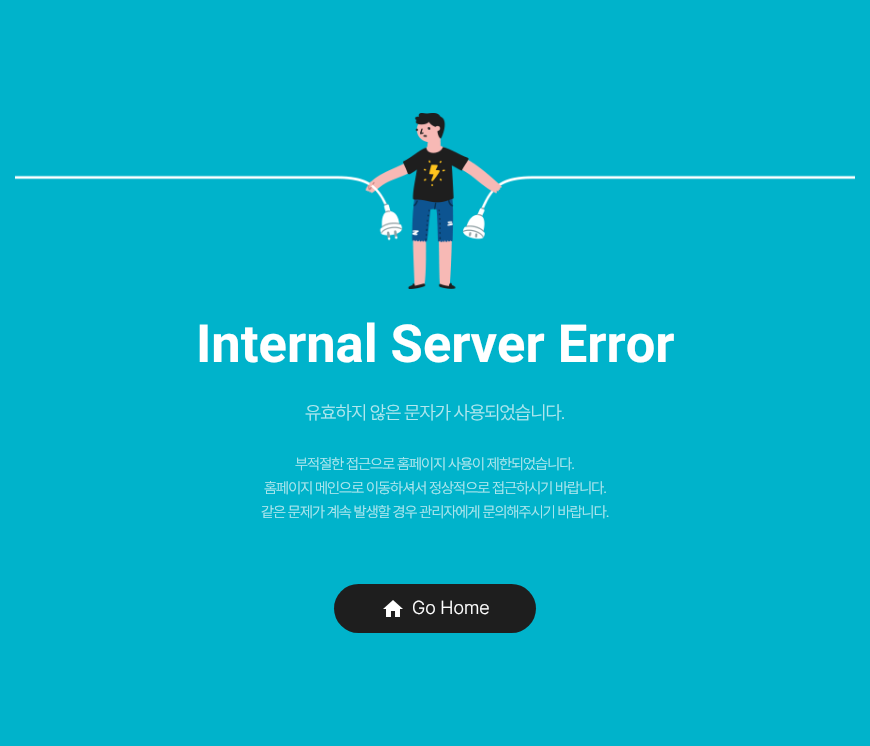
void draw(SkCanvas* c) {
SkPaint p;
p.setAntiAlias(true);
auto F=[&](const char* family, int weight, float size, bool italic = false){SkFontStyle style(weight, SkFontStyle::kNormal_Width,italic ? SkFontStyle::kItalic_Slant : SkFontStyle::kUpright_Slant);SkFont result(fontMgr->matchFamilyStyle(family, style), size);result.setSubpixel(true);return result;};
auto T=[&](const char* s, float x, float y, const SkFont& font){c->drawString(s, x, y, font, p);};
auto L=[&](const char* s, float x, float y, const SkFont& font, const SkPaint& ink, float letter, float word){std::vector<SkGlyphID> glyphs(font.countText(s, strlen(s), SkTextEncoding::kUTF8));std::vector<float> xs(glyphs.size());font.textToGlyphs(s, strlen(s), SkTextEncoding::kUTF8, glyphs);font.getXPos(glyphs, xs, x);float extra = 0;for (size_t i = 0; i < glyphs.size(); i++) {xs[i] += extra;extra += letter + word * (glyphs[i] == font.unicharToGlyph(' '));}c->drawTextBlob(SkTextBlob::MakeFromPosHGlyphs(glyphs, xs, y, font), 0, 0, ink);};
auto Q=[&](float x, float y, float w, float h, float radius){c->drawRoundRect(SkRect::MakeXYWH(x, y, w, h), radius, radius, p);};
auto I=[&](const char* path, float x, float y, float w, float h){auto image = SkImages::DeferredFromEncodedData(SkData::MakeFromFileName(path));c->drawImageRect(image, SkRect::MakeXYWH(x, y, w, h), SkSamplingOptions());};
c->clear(0xff00b3cb);
I("1.png",15,113,840,176);
auto f1 = F("Roboto",700,52.5);
p.setColor(0xffffffff);
T("Internal Server Error",196,362,f1);
auto f2 = F("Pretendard",300,18.75);
p.setColor(0xffb3e8ef);
L("유효하지 않은 문자가 사용되었습니다.",305,419,f2,p,-.9,0);
auto f3 = F("Pretendard",300,15);
L("부적절한 접근으로 홈페이지 사용이 제한되었습니다.",295,469,f3,p,-.9,0);
L("홈페이지 메인으로 이동하셔서 정상적으로 접근하시기 바랍니다.",264,493,f3,p,-.9,0);
L("같은 문제가 계속 발생할 경우 관리자에게 문의해주시기 바랍니다.",261,517,f3,p,-.9,0);
p.setColor(0xff1e1e1e);
Q(334,584,202,49,24.5);
I("2.png",383,600,20,17);
p.setColor(0xffffffff);
T("Go Home",412,614,f2);
}
